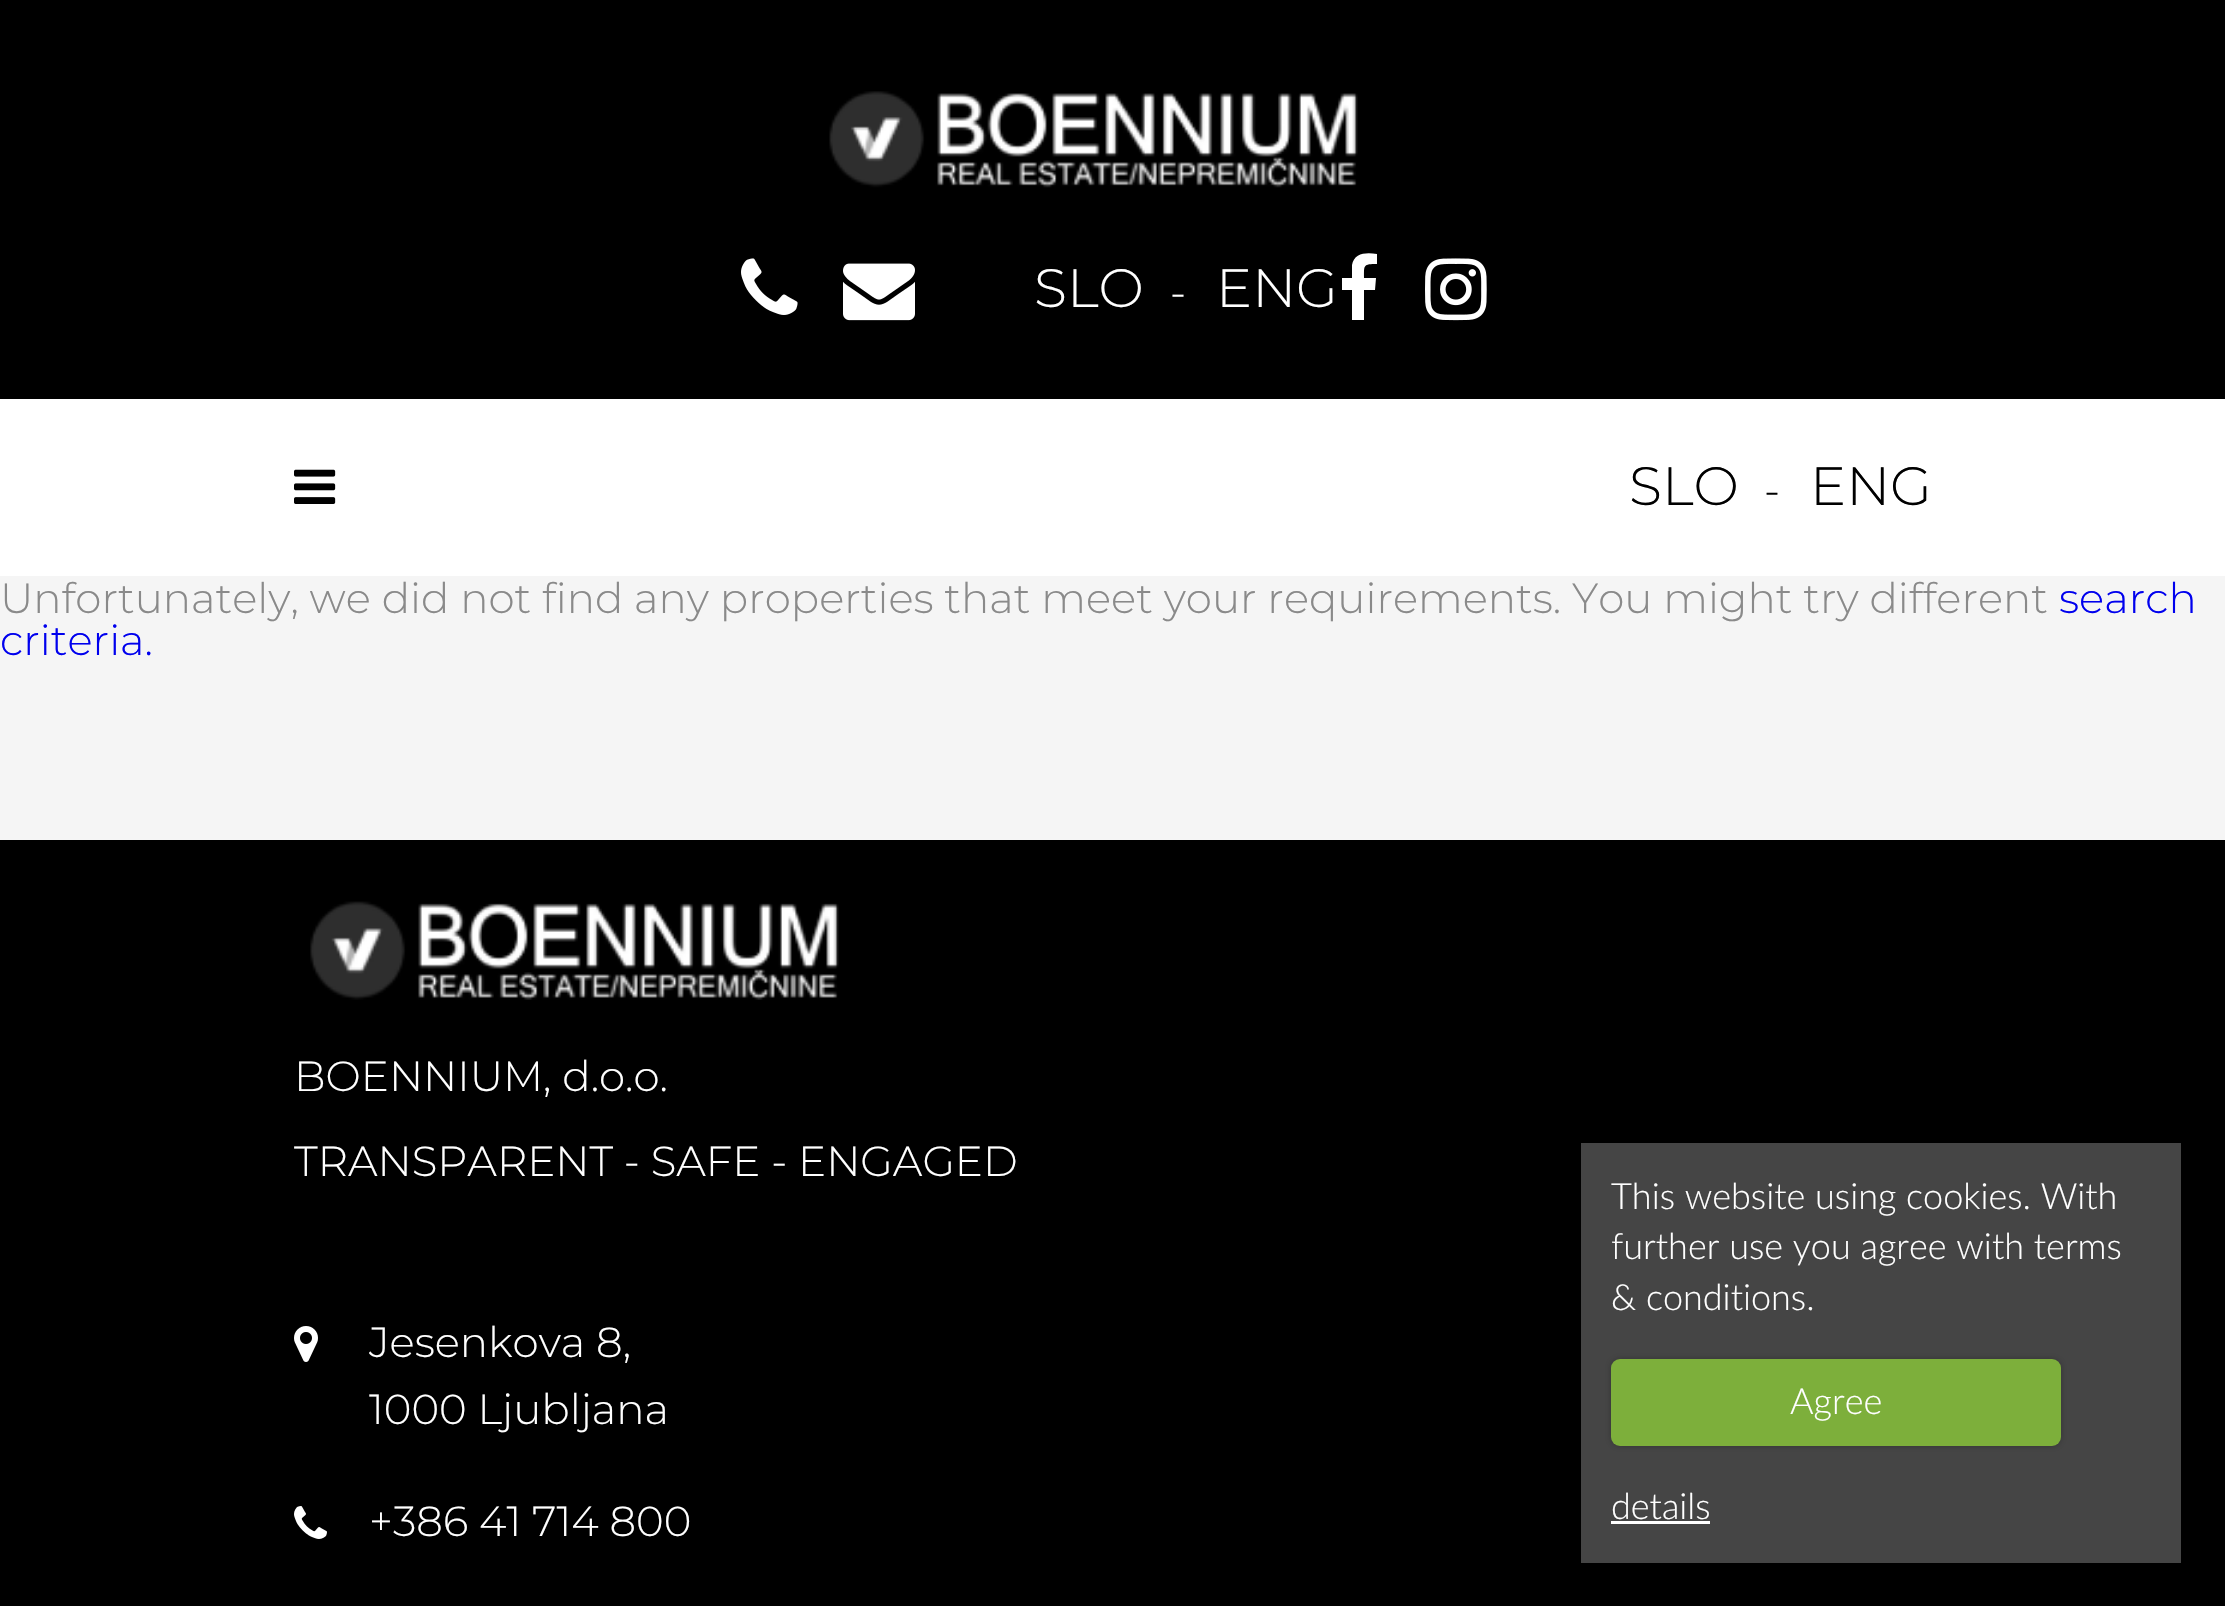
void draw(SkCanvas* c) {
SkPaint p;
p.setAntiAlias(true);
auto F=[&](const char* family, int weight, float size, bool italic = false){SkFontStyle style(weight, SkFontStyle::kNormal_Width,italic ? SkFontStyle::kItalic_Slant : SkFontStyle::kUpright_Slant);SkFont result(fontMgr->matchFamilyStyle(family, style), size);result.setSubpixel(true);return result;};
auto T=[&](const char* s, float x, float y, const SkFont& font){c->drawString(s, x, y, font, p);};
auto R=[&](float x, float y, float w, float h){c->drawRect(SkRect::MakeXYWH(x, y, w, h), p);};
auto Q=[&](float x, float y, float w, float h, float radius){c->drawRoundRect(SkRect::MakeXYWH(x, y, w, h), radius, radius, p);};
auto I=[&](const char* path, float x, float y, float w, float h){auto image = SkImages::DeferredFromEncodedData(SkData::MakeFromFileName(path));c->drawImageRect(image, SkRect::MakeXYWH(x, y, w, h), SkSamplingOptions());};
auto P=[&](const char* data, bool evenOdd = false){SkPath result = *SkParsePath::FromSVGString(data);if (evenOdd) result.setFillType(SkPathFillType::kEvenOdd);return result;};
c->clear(0xfff5f5f5);
p.setColor(0xff000000);
R(0,0,2225,399);
I("1.png",829,91,529,97);
I("2.png",741,258,57,57);
I("3.png",843,263,72,58);
auto f1 = F("Montserrat",300,54);
p.setColor(0xffffffff);
T("SLO",1034,307,f1);
auto f2 = F("Montserrat",300,42);
T("-",1170,307,f2);
T("ENG",1216,307,f1);
c->drawPath(P("M1377 254v10c-14 0-13 1-13 14h12l-1 12h-11v30h-12v-30h-10v-12h10v-13c2-12 14-13 25-11z"),p);
I("4.png",1425,258,62,63);
R(0,399,2225,177);
I("5.png",294,469,42,35);
p.setColor(0xff000000);
T("SLO",1629,505,f1);
T("-",1764,505,f2);
T("ENG",1810,505,f1);
p.setColor(0xff8a8a8a);
T("Unfortunately, we did not find any properties that meet your requirements. You might try different",0,613,f2);
p.setColor(0xff0000ee);
T("search",2059,613,f2);
T("criteria.",0,655,f2);
p.setColor(0xff000000);
R(0,840,2225,766);
I("6.png",310,901,529,99);
p.setColor(0xffffffff);
T("BOENNIUM, d.o.o.",294,1091,f2);
T("TRANSPARENT - SAFE - ENGAGED",294,1176,f2);
I("7.png",294,1326,24,36);
T("Jesenkova 8,",369,1357,f2);
T("1000 Ljubljana",369,1424,f2);
I("8.png",294,1506,33,33);
T("+386 41 714 800",369,1536,f2);
p.setColor(0xff454545);
R(1581,1143,600,420);
auto f3 = F("Lato",300,36);
p.setColor(0xffffffff);
T("This website using cookies. With",1611,1209,f3);
T("further use you agree with terms",1611,1259,f3);
T("& conditions.",1611,1310,f3);
p.setColor(0x40000000);
p.setMaskFilter(SkMaskFilter::MakeBlur(kNormal_SkBlurStyle, 3));
c->drawRoundRect(SkRect::MakeXYWH(1611,1359,450,87),9,9,p);
p.setMaskFilter(nullptr);
p.setColor(0xff7daf3b);
Q(1611,1359,450,87,9);
p.setColor(0xffffffff);
T("Agree",1790,1414,f3);
T("details",1611,1519,f3);
R(1611,1521,99,3);
}
